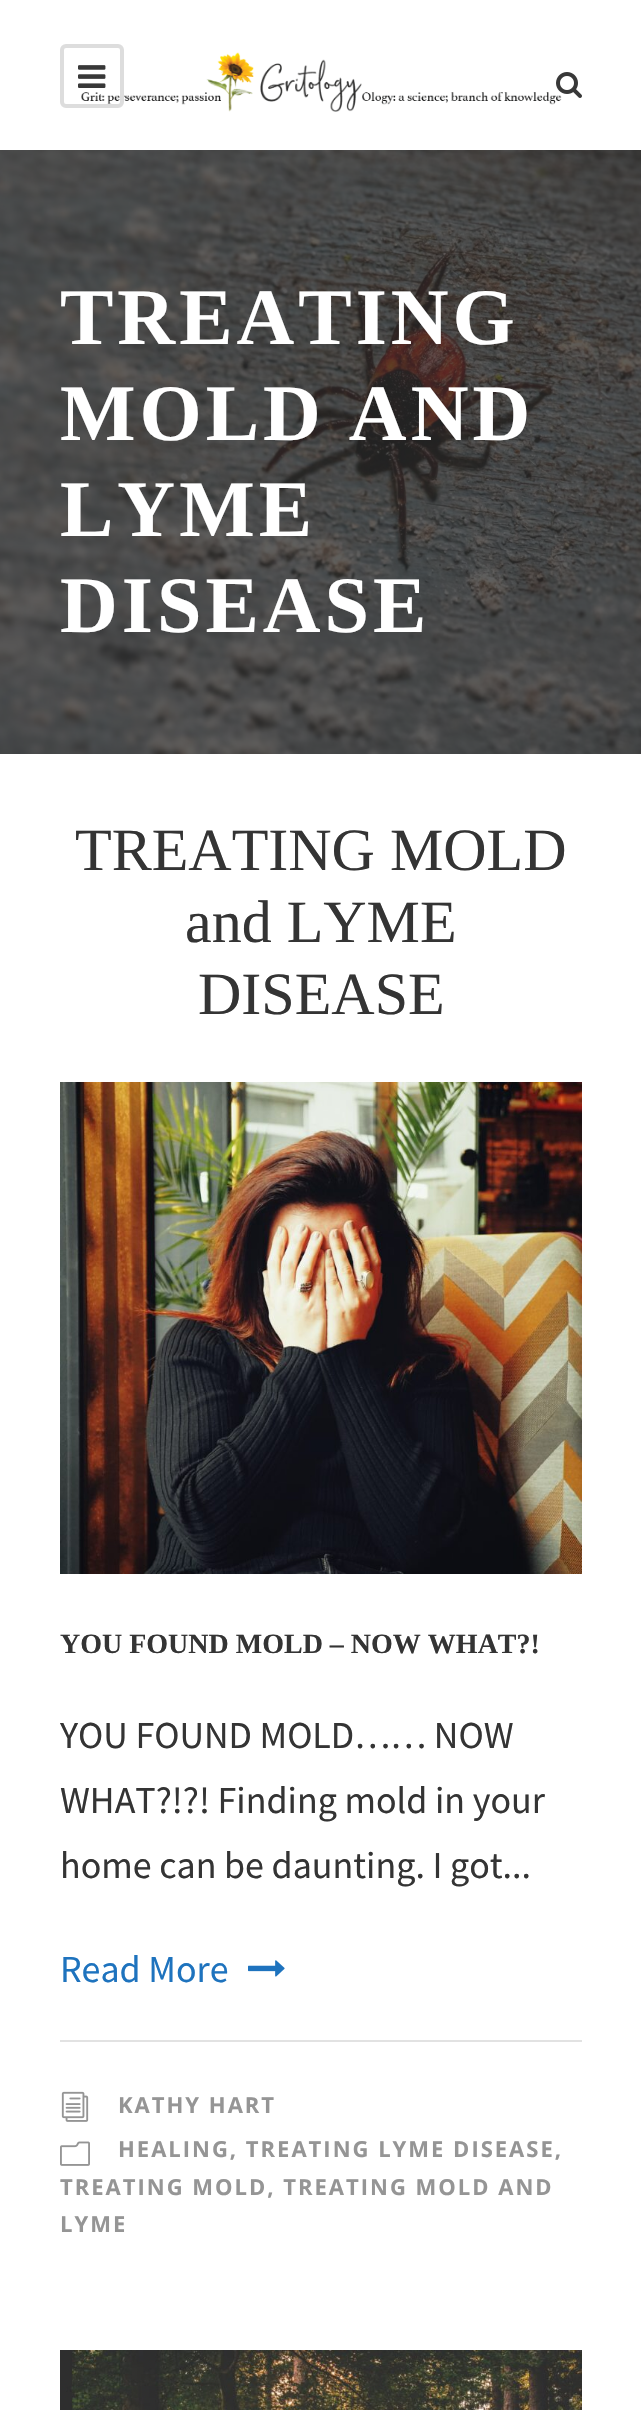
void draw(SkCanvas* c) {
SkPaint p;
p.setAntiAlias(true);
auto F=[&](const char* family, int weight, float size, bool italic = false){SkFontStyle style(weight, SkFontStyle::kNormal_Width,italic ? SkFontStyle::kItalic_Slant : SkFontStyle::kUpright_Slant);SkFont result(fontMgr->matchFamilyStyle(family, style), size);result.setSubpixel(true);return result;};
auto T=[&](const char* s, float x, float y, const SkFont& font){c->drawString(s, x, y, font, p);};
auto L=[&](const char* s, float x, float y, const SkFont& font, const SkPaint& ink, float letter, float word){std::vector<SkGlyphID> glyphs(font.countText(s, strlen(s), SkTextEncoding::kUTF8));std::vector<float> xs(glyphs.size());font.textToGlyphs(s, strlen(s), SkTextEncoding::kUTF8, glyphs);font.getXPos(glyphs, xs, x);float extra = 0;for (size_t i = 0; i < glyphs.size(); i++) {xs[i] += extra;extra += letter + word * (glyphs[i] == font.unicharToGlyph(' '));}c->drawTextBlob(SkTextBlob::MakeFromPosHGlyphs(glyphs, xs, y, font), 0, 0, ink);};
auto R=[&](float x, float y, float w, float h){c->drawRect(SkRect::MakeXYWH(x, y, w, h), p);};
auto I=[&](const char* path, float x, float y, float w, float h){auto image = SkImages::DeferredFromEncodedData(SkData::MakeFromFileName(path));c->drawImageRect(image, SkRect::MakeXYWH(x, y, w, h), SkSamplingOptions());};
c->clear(0xffffffff);
I("2.png",81,52,481,60);
p.setStroke(true);
p.setStrokeWidth(4);
p.setColor(0xffdddddd);
c->drawRoundRect(SkRect::MakeXYWH(62,46,60,60),4,4,p);
I("1.png",78,65,28,23);
I("3.png",556,72,26,26);
I("4.png",0,150,641,604);
auto f1 = F("Liberation Serif",700,80);
p.setStroke(false);
p.setColor(0xffffffff);
L("TREATING",60,344,f1,p,4,0);
L("MOLD AND",60,440,f1,p,4,0);
L("LYME",60,536,f1,p,4,0);
L("DISEASE",60,632,f1,p,4,0);
auto f2 = F("Liberation Serif",400,60);
p.setColor(0xff343434);
T("TREATING MOLD",75,870,f2);
T("and LYME",185,942,f2);
T("DISEASE",198,1014,f2);
I("5.png",60,1082,522,492);
auto f3 = F("Liberation Serif",700,28);
T("YOU FOUND MOLD – NOW WHAT?!",60,1653,f3);
auto f4 = F("Source Sans Pro",400,38);
T("YOU FOUND MOLD…… NOW",60,1748,f4);
T("WHAT?!?! Finding mold in your",60,1813,f4);
T("home can be daunting. I got...",60,1878,f4);
p.setColor(0xff1e73be);
T("Read More",60,1982,f4);
I("6.png",248,1960,37,17);
p.setColor(0xffe2e2e2);
R(60,2040,522,2);
I("7.png",61,2091,28,31);
auto f5 = F("Open Sans",700,22);
p.setColor(0xff959595);
L("KATHY HART",118,2113,f5,p,2,0);
I("8.png",60,2141,30,25);
L("HEALING, TREATING LYME DISEASE,",118,2157,f5,p,2,0);
L("TREATING MOLD, TREATING MOLD AND",60,2195,f5,p,2,0);
L("LYME",60,2232,f5,p,2,0);
I("9.png",60,2350,522,60);
}
